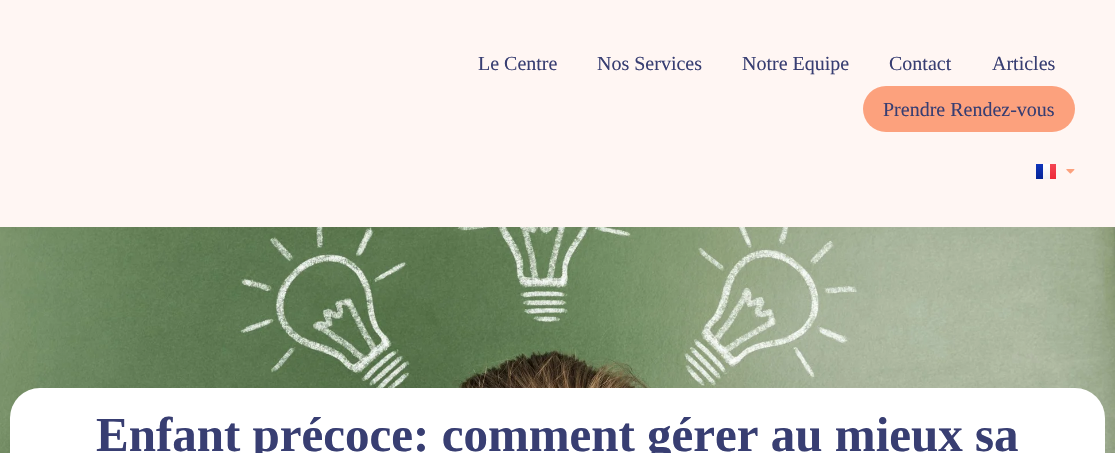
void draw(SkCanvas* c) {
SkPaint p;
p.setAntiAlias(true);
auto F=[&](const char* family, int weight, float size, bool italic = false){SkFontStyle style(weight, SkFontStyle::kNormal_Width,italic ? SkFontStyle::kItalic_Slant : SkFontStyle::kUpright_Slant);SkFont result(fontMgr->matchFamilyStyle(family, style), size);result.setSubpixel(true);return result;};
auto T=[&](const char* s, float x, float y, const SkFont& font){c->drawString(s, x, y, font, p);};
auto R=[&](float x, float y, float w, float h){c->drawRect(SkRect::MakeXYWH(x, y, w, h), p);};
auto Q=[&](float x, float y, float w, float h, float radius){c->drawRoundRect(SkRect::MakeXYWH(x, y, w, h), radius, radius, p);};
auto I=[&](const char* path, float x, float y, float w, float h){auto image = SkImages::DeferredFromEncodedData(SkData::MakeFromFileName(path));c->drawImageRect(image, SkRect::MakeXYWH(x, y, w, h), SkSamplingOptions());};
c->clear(0xffffffff);
p.setColor(0xfffff6f3);
R(0,0,1115,227);
auto f1 = F("Liberation Serif",400,20);
p.setColor(0xff383e72);
T("Le Centre",478,70,f1);
T("Nos Services",597,70,f1);
T("Notre Equipe",742,70,f1);
T("Contact",889,70,f1);
T("Articles",992,70,f1);
p.setColor(0xfffca17d);
Q(863,86,212,46,23);
p.setColor(0xff383e72);
T("Prendre Rendez-vous",883,116,f1);
{
const SkColor colors[] = {0xff1035bb,0xff042396};
const float stops[] = {0,1};
const SkPoint ends[] = {{1040,164}, {1040,179}};
p.setShader(SkGradientShader::MakeLinear(ends, colors, stops, 2, SkTileMode::kClamp));
p.setAlpha(255);
}
R(1036,164,7,15);
{
const SkColor colors[] = {0xffffffff,0xfff0f0f0};
const float stops[] = {0,1};
const SkPoint ends[] = {{1047,164}, {1047,179}};
p.setShader(SkGradientShader::MakeLinear(ends, colors, stops, 2, SkTileMode::kClamp));
p.setAlpha(255);
}
R(1043,164,7,15);
{
const SkColor colors[] = {0xfff44653,0xffee2a39};
const float stops[] = {0,1};
const SkPoint ends[] = {{1052,164}, {1052,179}};
p.setShader(SkGradientShader::MakeLinear(ends, colors, stops, 2, SkTileMode::kClamp));
p.setAlpha(255);
}
R(1050,164,6,15);
I("1.png",1066,169,9,5);
I("2.png",0,227,1115,226);
p.setShader(nullptr);
p.setColor(0xffffffff);
Q(10,388,1095,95,30);
auto f2 = F("Liberation Serif",700,49);
p.setColor(0xff383e72);
T("Enfant précoce: comment gérer au mieux sa",96,451,f2);
}
